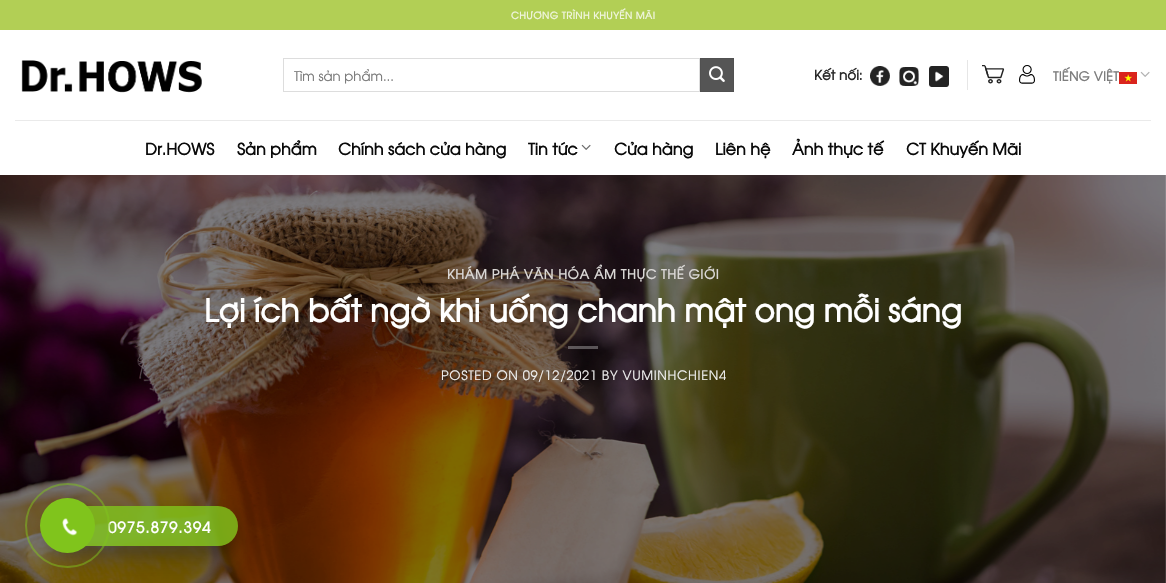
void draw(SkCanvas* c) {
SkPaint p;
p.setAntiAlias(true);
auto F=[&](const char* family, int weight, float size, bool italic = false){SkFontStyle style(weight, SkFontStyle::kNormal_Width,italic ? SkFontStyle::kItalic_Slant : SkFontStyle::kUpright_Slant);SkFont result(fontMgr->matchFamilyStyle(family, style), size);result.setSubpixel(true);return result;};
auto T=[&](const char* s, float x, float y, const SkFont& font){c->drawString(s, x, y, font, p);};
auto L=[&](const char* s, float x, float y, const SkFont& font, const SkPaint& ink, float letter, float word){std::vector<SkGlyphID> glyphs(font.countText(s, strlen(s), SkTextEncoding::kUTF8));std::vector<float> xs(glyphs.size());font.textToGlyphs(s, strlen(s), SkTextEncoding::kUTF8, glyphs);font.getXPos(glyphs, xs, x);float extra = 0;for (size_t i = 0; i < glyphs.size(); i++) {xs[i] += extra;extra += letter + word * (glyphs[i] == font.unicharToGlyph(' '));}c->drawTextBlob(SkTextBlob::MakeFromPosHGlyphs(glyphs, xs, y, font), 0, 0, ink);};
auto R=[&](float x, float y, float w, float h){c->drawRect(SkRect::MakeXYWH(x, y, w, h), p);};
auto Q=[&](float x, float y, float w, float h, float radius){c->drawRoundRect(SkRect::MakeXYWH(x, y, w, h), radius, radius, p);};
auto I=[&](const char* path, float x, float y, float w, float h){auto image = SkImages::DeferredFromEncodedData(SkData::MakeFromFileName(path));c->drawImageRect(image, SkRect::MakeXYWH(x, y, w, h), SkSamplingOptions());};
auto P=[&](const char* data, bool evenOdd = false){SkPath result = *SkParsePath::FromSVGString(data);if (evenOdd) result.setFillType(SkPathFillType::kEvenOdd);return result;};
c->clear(0xffffffff);
p.setColor(0xffb2cf55);
R(0,0,1166,30);
auto f1 = F("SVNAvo",700,9.6);
p.setColor(0xfff0f5dd);
L("CHƯƠNG TRÌNH KHUYẾN MÃI",511,19,f1,p,.5,0);
I("1.png",21,60,181,33);
p.setStroke(true);
p.setStrokeWidth(1);
p.setColor(0xffdddddd);
c->drawRect(SkRect::MakeXYWH(283.5,58.5,416,33),p);
auto f2 = F("SVNAvo",400,13.25);
p.setStroke(false);
p.setColor(0xff757575);
T("Tìm sản phẩm...",294,81,f2);
p.setColor(0xff555555);
c->drawRect(SkRect::MakeXYWH(700.5,58.5,33,33),p);
p.setStroke(true);
p.setColor(0xff515151);
c->drawRect(SkRect::MakeXYWH(700.5,58.5,33,33),p);
I("2.png",709,66,16,16);
auto f3 = F("SVNAvo",700,13.5);
p.setStroke(false);
p.setColor(0xff282828);
T("Kết nối:",814,80,f3);
I("3.png",870,66,20,20);
I("4.png",899,67,20,19);
I("5.png",929,66,20,21);
p.setColor(0xffe6e6e6);
R(967,60,1,30);
I("6.png",982,65,23,19);
I("7.png",1019,65,16,19);
auto f4 = F("SVNAvo",700,12.75);
p.setColor(0xff7d7d7d);
L("TIẾNG VIỆT",1053,81,f4,p,.25,0);
I("8.png",1119,72,18,12);
I("9.png",1140,71,10,6);
p.setColor(0xffeaeaea);
R(15,120,1136,1);
auto f5 = F("SVNAvo",700,16);
p.setColor(0xff0a0a0a);
T("Dr.HOWS",145,155,f5);
T("Sản phẩm",237,155,f5);
T("Chính sách cửa hàng",338,155,f5);
T("Tin tức",528,155,f5);
I("10.png",581,144,10,6);
T("Cửa hàng",614,155,f5);
T("Liên hệ",715,155,f5);
T("Ảnh thực tế",792,155,f5);
T("CT Khuyến Mãi",906,155,f5);
I("11.png",0,175,1166,408);
auto f6 = F("SVNAvo",700,12.9);
p.setColor(0xffd9d7d5);
L("KHÁM PHÁ VĂN HÓA ẨM THỰC THẾ GIỚI",447,279,f6,p,.65,0);
auto f7 = F("SVNAvo",700,31.25);
p.setColor(0xffffffff);
T("Lợi ích bất ngờ khi uống chanh mật ong mỗi sáng",204,322,f7);
p.setColor(0x4dffffff);
R(568,346,30,3);
auto f8 = F("SVNAvo",400,12.9);
p.setColor(0xfff1f1f1);
L("POSTED ON 09/12/2021 BY VUMINHCHIEN4",441,380,f8,p,.65,0);
c->save();
c->clipPath(P("M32 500h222v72h-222zm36 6h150c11 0 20 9 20 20c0 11-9 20-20 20h-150c-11 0-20-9-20-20c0-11 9-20 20-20z",true),true);
p.setColor(0x1a000000);
p.setMaskFilter(SkMaskFilter::MakeBlur(kNormal_SkBlurStyle, 5));
c->drawRoundRect(SkRect::MakeXYWH(48,516,190,40),20,20,p);
p.setMaskFilter(nullptr);
c->restore();
c->save();
c->clipPath(P("M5 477h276v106h-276zm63 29h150c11 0 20 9 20 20c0 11-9 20-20 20h-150c-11 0-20-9-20-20c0-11 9-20 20-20z",true),true);
p.setColor(0x40000000);
p.setMaskFilter(SkMaskFilter::MakeBlur(kNormal_SkBlurStyle, 14));
c->drawRoundRect(SkRect::MakeXYWH(48,520,190,40),20,20,p);
p.setMaskFilter(nullptr);
c->restore();
p.setColor(0xcc80c41c);
Q(48,506,190,40,20);
auto f9 = F("SVNAvo",700,15);
p.setColor(0xffffffff);
L("0975.879.394",108,533,f9,p,1,0);
p.setStroke(true);
p.setStrokeWidth(2);
p.setColor(0x8080c41c);
c->drawCircle(67.5,525.5,41.5,p);
p.setStroke(false);
p.setColor(0xff80c41c);
c->drawCircle(67.5,525.5,27.5,p);
I("12.png",62,518,16,18);
}
